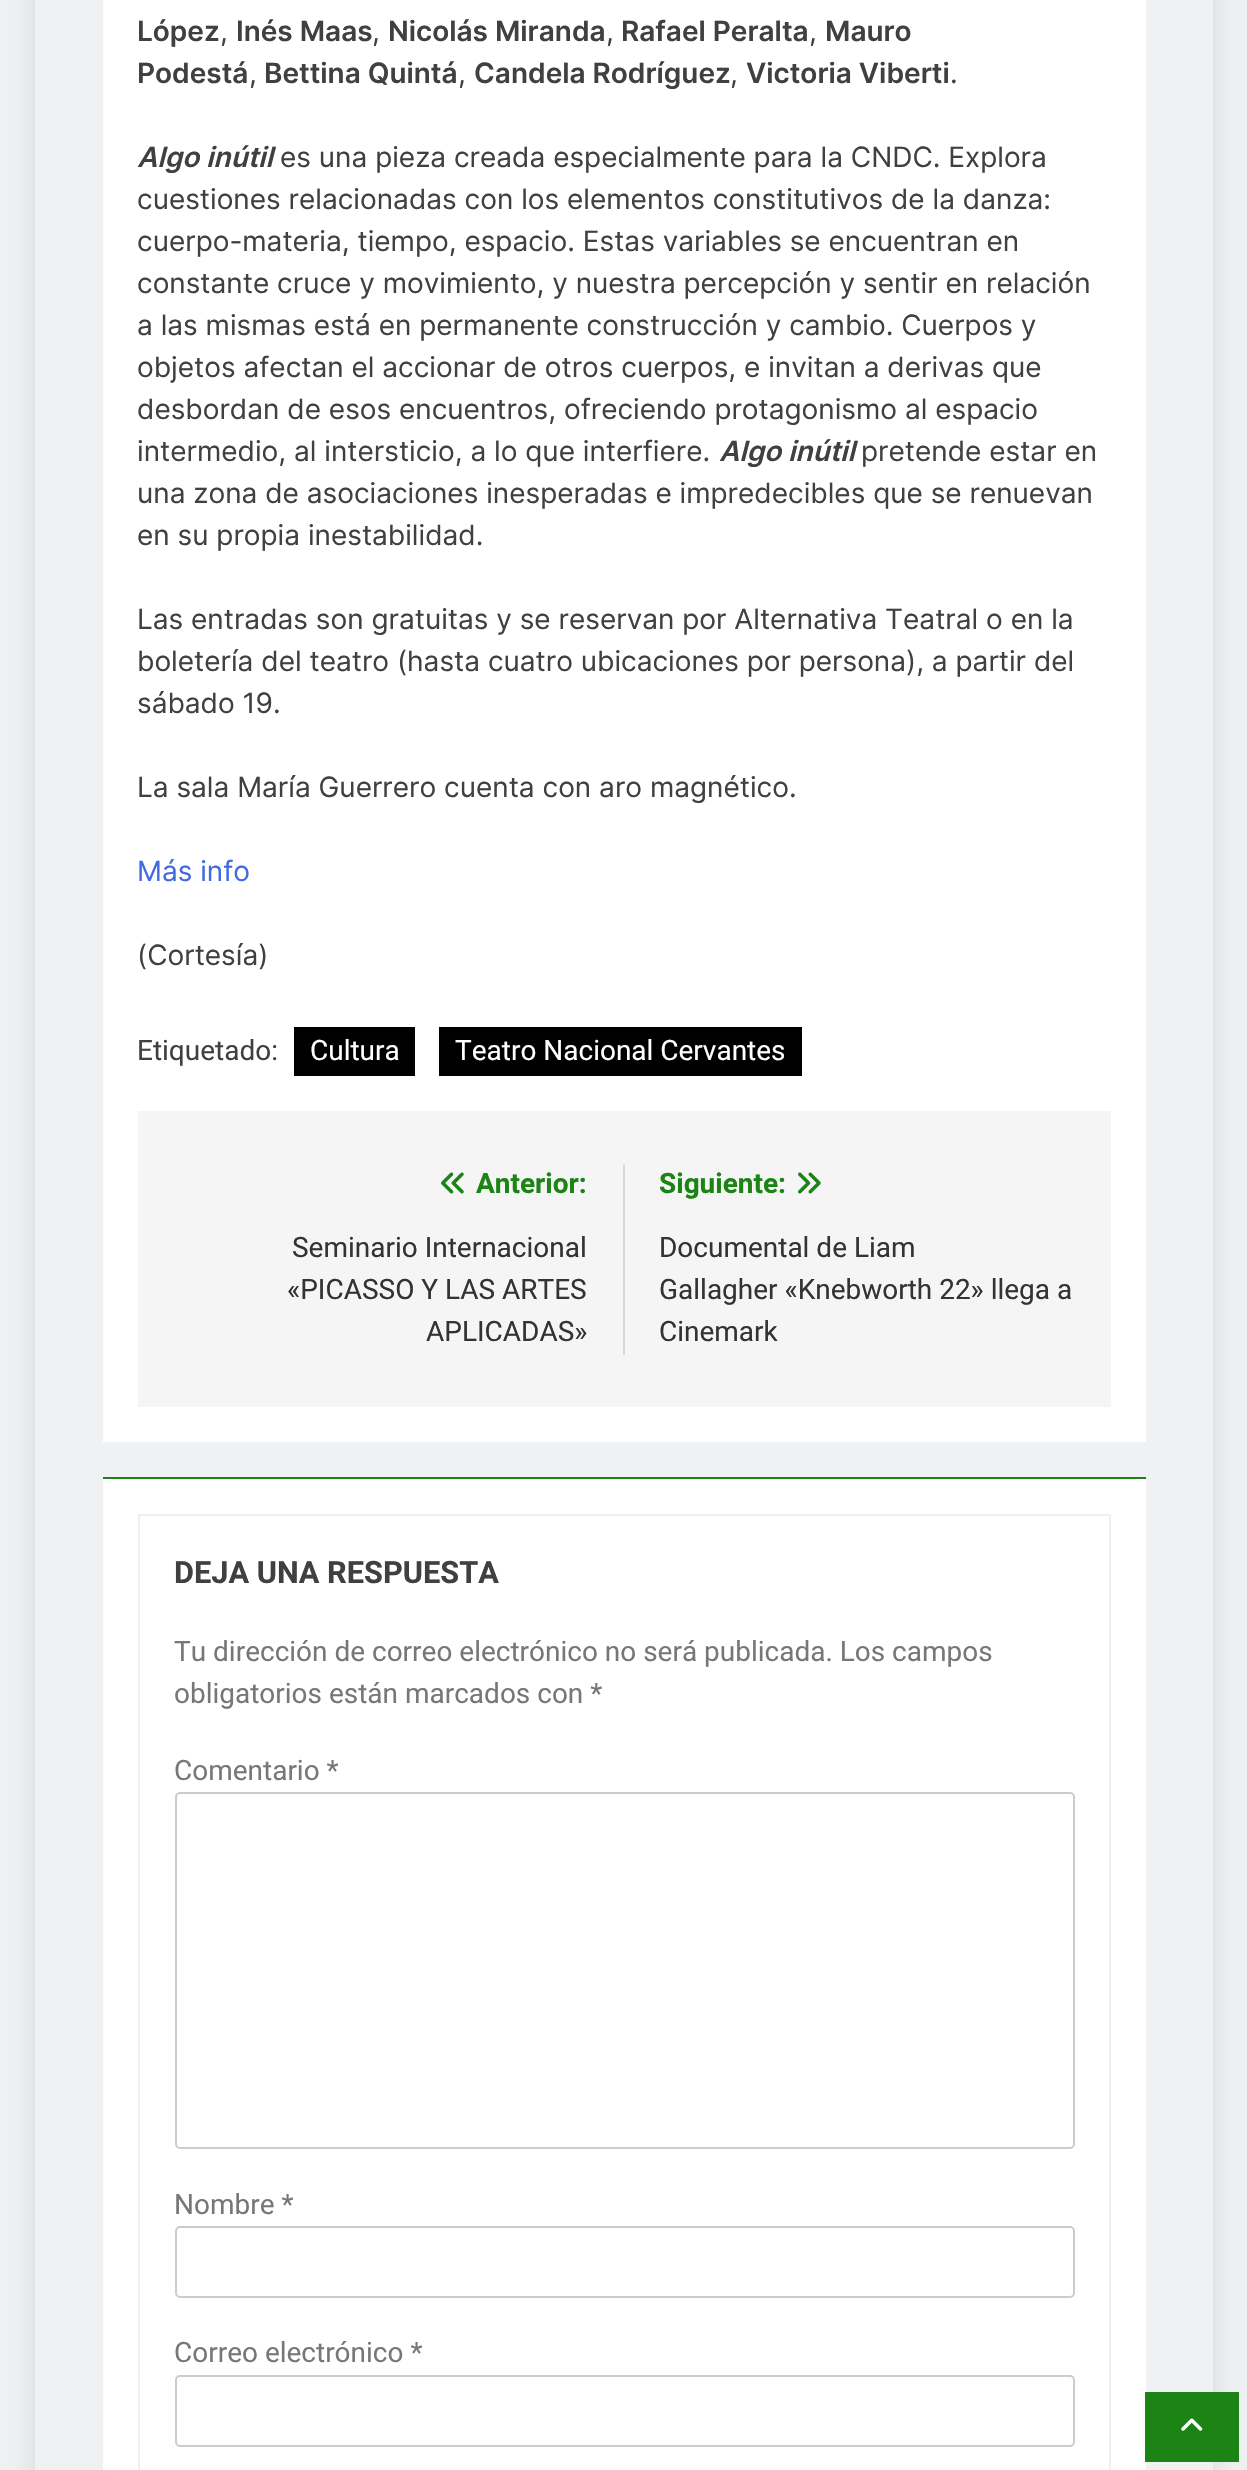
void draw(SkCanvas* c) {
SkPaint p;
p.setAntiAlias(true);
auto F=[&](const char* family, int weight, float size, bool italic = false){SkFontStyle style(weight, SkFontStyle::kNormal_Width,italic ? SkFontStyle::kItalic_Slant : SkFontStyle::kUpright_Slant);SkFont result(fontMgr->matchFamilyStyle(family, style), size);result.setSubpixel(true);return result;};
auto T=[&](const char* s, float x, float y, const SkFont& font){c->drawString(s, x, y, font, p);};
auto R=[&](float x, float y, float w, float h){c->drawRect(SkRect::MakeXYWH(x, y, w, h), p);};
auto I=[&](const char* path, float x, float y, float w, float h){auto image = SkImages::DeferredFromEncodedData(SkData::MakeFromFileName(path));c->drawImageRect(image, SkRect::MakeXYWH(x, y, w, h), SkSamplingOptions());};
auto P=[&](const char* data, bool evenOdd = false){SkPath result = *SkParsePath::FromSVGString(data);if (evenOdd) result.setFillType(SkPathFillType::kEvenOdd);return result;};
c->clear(0xfff0f1f2);
c->save();
c->clipPath(P("M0 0h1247v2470h-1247zm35-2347h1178v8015h-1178z",true),true);
p.setColor(0x1a000000);
p.setMaskFilter(SkMaskFilter::MakeBlur(kNormal_SkBlurStyle, 13));
c->drawRect(SkRect::MakeXYWH(35,-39,1178,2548),p);
p.setMaskFilter(nullptr);
c->restore();
p.setColor(0xffffffff);
R(103,0,1043,1442);
auto f1 = F("Inter",600,28);
p.setColor(0xff404040);
T("López",137,41,f1);
auto f2 = F("Inter",400,28);
T(",",220,41,f2);
T("Inés Maas",236,41,f1);
T(",",372,41,f2);
T("Nicolás Miranda",388,41,f1);
T(",",606,41,f2);
T("Rafael Peralta",621,41,f1);
T(",",809,41,f2);
T("Mauro",825,41,f1);
T("Podestá",137,83,f1);
T(",",249,83,f2);
T("Bettina Quintá",264,83,f1);
T(",",458,83,f2);
T("Candela Rodríguez",474,83,f1);
T(",",730,83,f2);
T("Victoria Viberti",746,83,f1);
T(".",950,83,f2);
auto f3 = F("Inter",600,28,true);
T("Algo inútil",137,167,f3);
T("es una pieza creada especialmente para la CNDC. Explora",280,167,f2);
T("cuestiones relacionadas con los elementos constitutivos de la danza:",137,209,f2);
T("cuerpo-materia, tiempo, espacio. Estas variables se encuentran en",137,251,f2);
T("constante cruce y movimiento, y nuestra percepción y sentir en relación",137,293,f2);
T("a las mismas está en permanente construcción y cambio. Cuerpos y",137,335,f2);
T("objetos afectan el accionar de otros cuerpos, e invitan a derivas que",137,377,f2);
T("desbordan de esos encuentros, ofreciendo protagonismo al espacio",137,419,f2);
T("intermedio, al intersticio, a lo que interfiere.",137,461,f2);
T("Algo inútil",719,461,f3);
T("pretende estar en",861,461,f2);
T("una zona de asociaciones inesperadas e impredecibles que se renuevan",137,503,f2);
T("en su propia inestabilidad.",137,545,f2);
T("Las entradas son gratuitas y se reservan por Alternativa Teatral o en la",137,629,f2);
T("boletería del teatro (hasta cuatro ubicaciones por persona), a partir del",137,671,f2);
T("sábado 19.",137,713,f2);
T("La sala María Guerrero cuenta con aro magnético.",137,797,f2);
p.setColor(0xff4169e1);
T("Más info",137,881,f2);
p.setColor(0xff404040);
T("(Cortesía)",137,965,f2);
auto f4 = F("Roboto",400,28);
T("Etiquetado:",137,1060,f4);
p.setColor(0xff000000);
R(294,1027,121,49);
p.setColor(0xffffffff);
T("Cultura",310,1060,f4);
p.setColor(0xff000000);
R(439,1027,363,49);
p.setColor(0xffffffff);
T("Teatro Nacional Cervantes",455,1060,f4);
p.setColor(0xfff5f5f5);
R(138,1111,973,296);
p.setColor(0xffd9d9d9);
R(623,1164,2,191);
I("1.png",441,1172,23,22);
auto f5 = F("Roboto",700,28);
p.setColor(0xff1b8415);
T("Anterior:",476,1193,f5);
p.setColor(0xff333333);
T("Seminario Internacional",292,1257,f4);
T("«PICASSO Y LAS ARTES",287,1299,f4);
T("APLICADAS»",426,1341,f4);
p.setColor(0xff1b8415);
T("Siguiente:",659,1193,f5);
I("2.png",798,1172,23,22);
p.setColor(0xff333333);
T("Documental de Liam",659,1257,f4);
T("Gallagher «Knebworth 22» llega a",659,1299,f4);
T("Cinemark",659,1341,f4);
p.setColor(0xffffffff);
R(103,1479,1043,991);
p.setColor(0xff1b8415);
R(103,1477,1043,2);
p.setStroke(true);
p.setStrokeWidth(2);
p.setColor(0xfff0f0f0);
c->drawRect(SkRect::MakeXYWH(139,1515,971,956),p);
auto f6 = F("Roboto",700,30.75);
p.setStroke(false);
p.setColor(0xff404040);
T("DEJA UNA RESPUESTA",174,1583,f6);
p.setColor(0xff777777);
T("Tu dirección de correo electrónico no será publicada. Los campos",174,1661,f4);
T("obligatorios están marcados con *",174,1703,f4);
T("Comentario *",174,1780,f4);
p.setStroke(true);
p.setColor(0xffcccccc);
c->drawRoundRect(SkRect::MakeXYWH(176,1793,898,355),4,4,p);
p.setStroke(false);
p.setColor(0xff777777);
T("Nombre *",174,2214,f4);
p.setStroke(true);
p.setColor(0xffcccccc);
c->drawRoundRect(SkRect::MakeXYWH(176,2227,898,70),4,4,p);
p.setStroke(false);
p.setColor(0xff777777);
T("Correo electrónico *",174,2362,f4);
p.setStroke(true);
p.setColor(0xffcccccc);
c->drawRoundRect(SkRect::MakeXYWH(176,2376,898,70),4,4,p);
p.setStroke(false);
p.setColor(0xff1b8415);
R(1145,2392,94,70);
I("3.png",1181,2418,22,13);
}
